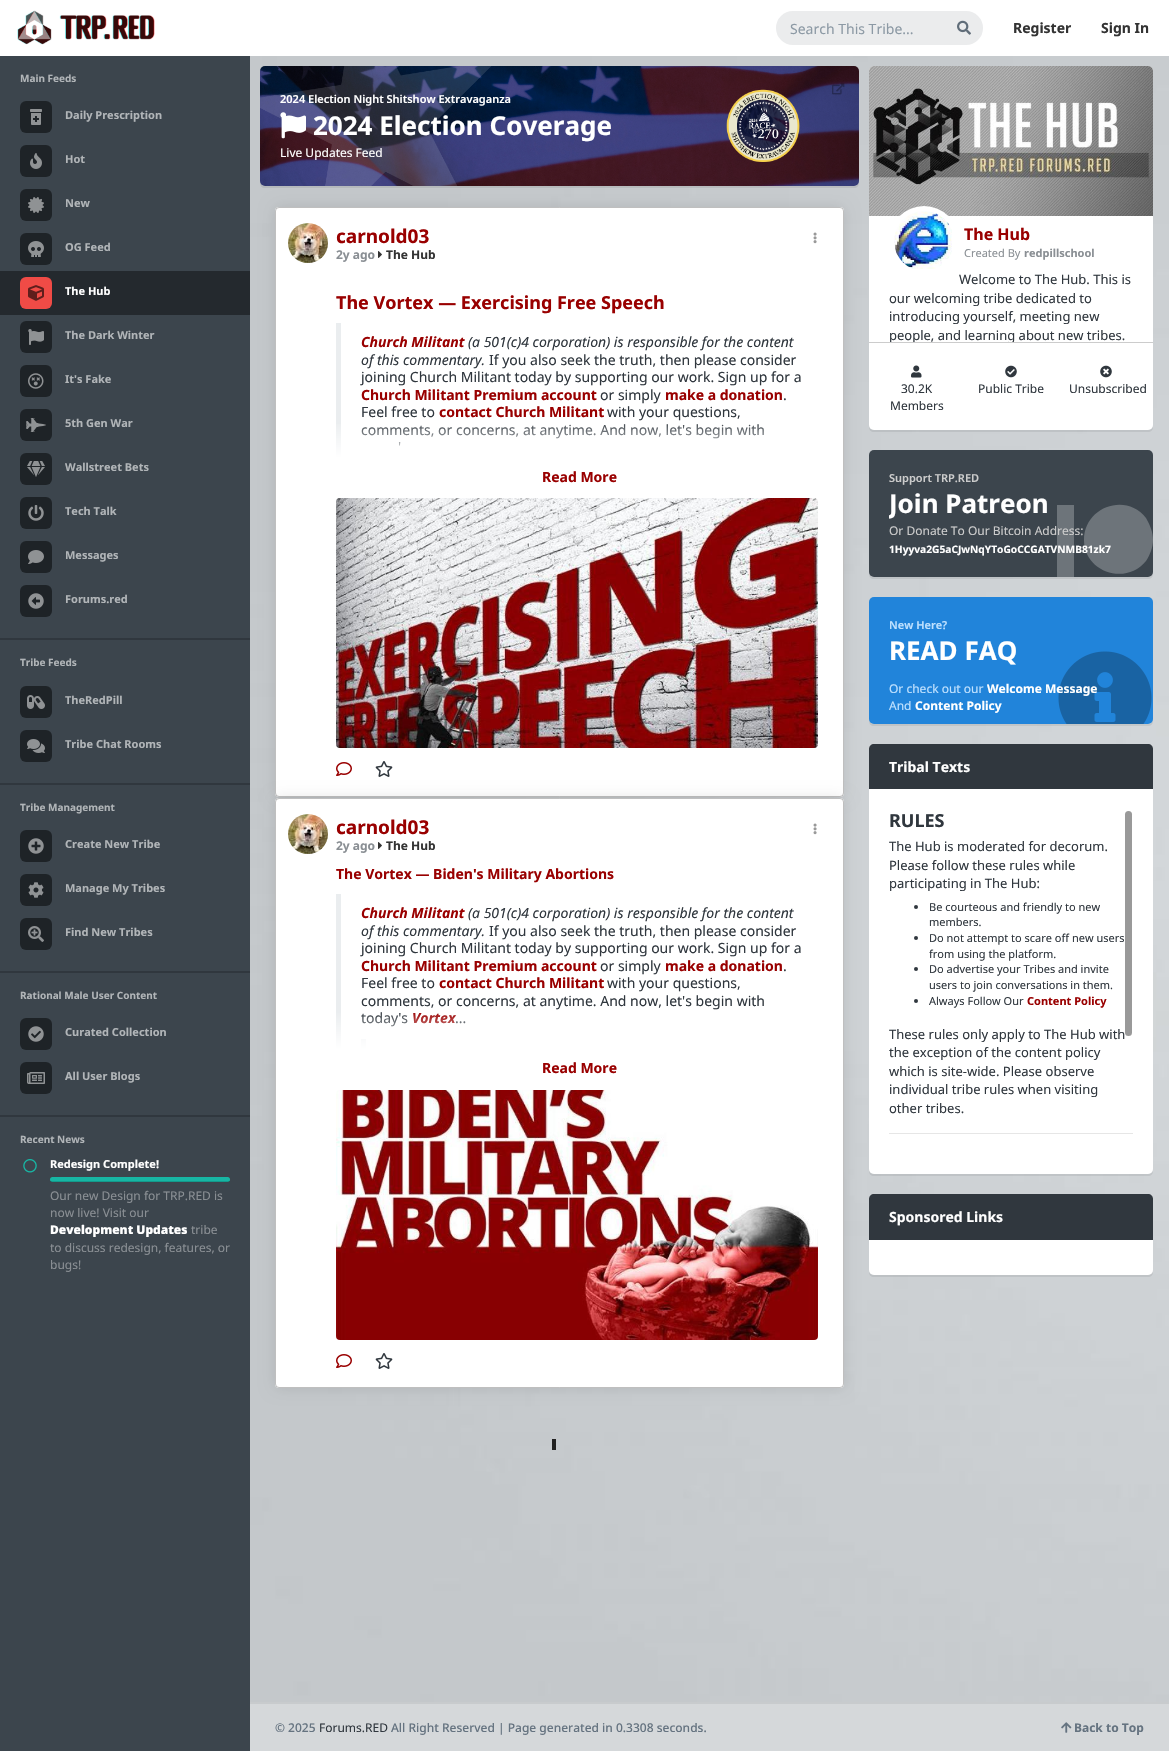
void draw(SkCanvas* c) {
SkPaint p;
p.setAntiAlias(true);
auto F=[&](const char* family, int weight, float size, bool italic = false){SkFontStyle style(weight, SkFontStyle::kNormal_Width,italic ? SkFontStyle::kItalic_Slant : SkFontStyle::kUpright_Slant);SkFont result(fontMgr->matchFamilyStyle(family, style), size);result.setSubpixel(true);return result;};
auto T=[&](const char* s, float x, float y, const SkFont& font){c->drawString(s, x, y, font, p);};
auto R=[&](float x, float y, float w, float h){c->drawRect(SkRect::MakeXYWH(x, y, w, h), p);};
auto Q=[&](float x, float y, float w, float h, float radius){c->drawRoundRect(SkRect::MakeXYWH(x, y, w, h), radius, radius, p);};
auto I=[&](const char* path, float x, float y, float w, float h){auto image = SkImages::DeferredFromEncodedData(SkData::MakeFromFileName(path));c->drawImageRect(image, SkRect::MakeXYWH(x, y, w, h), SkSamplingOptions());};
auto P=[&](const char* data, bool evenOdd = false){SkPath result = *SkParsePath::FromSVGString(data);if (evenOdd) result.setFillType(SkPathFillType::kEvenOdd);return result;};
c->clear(0xffffffff);
I("1.png",250,56,919,1646);
I("2.png",17,10,138,35);
p.setColor(0xffebeced);
c->drawRoundRect(SkRect::MakeXYWH(777,12,205,32),16,16,p);
p.setStroke(true);
p.setStrokeWidth(2);
c->drawRoundRect(SkRect::MakeXYWH(777,12,205,32),16,16,p);
auto f1 = F("Noto Sans",400,14);
p.setStroke(false);
p.setColor(0xff8d9aa5);
T("Search This Tribe...",790,34,f1);
I("3.png",957,20,14,15);
auto f2 = F("Noto Sans",700,14);
p.setColor(0xff333333);
T("Register",1013,33,f2);
T("Sign In",1101,33,f2);
p.setColor(0xff3c454d);
R(0,56,250,1695);
auto f3 = F("Noto Sans",700,10);
p.setColor(0xffb1b5b8);
T("Main Feeds",20,82,f3);
p.setColor(0xff1e2327);
Q(20,101,32,32,6);
I("4.png",30,109,12,16);
auto f4 = F("Noto Sans",700,11);
p.setColor(0xffb1b5b8);
T("Daily Prescription",65,119,f4);
p.setColor(0xff1e2327);
Q(20,145,32,32,6);
I("5.png",30,153,12,16);
p.setColor(0xffb1b5b8);
T("Hot",65,163,f4);
p.setColor(0xff1e2327);
Q(20,189,32,32,6);
I("6.png",28,197,16,16);
p.setColor(0xffb1b5b8);
T("New",65,207,f4);
p.setColor(0xff1e2327);
Q(20,233,32,32,6);
I("7.png",28,241,16,16);
p.setColor(0xffb1b5b8);
T("OG Feed",65,251,f4);
p.setColor(0xff24292e);
R(0,271,250,44);
p.setColor(0xfff04b46);
Q(20,277,32,32,6);
I("8.png",28,285,16,16);
p.setColor(0xffffffff);
T("The Hub",65,295,f4);
p.setColor(0xff1e2327);
Q(20,321,32,32,6);
I("9.png",28,329,16,16);
p.setColor(0xffb1b5b8);
T("The Dark Winter",65,339,f4);
p.setColor(0xff1e2327);
Q(20,365,32,32,6);
I("10.png",28,373,16,16);
p.setColor(0xffb1b5b8);
T("It's Fake",65,383,f4);
p.setColor(0xff1e2327);
Q(20,409,32,32,6);
I("11.png",26,418,20,14);
p.setColor(0xffb1b5b8);
T("5th Gen War",65,427,f4);
p.setColor(0xff1e2327);
Q(20,453,32,32,6);
I("12.png",27,461,18,16);
p.setColor(0xffb1b5b8);
T("Wallstreet Bets",65,471,f4);
p.setColor(0xff1e2327);
Q(20,497,32,32,6);
I("13.png",28,505,16,16);
p.setColor(0xffb1b5b8);
T("Tech Talk",65,515,f4);
p.setColor(0xff1e2327);
Q(20,541,32,32,6);
I("14.png",28,550,16,14);
p.setColor(0xffb1b5b8);
T("Messages",65,559,f4);
p.setColor(0xff1e2327);
Q(20,585,32,32,6);
I("15.png",28,593,16,16);
p.setColor(0xffb1b5b8);
T("Forums.red",65,603,f4);
p.setColor(0xff30373e);
R(0,638,250,2);
p.setColor(0xffb1b5b8);
T("Tribe Feeds",20,666,f3);
p.setColor(0xff1e2327);
Q(20,686,32,32,6);
I("16.png",27,695,18,14);
p.setColor(0xffb1b5b8);
T("TheRedPill",65,704,f4);
p.setColor(0xff1e2327);
Q(20,730,32,32,6);
I("17.png",27,739,18,14);
p.setColor(0xffb1b5b8);
T("Tribe Chat Rooms",65,748,f4);
p.setColor(0xff30373e);
R(0,783,250,2);
p.setColor(0xffb1b5b8);
T("Tribe Management",20,811,f3);
p.setColor(0xff1e2327);
Q(20,830,32,32,6);
I("18.png",28,838,16,16);
p.setColor(0xffb1b5b8);
T("Create New Tribe",65,848,f4);
p.setColor(0xff1e2327);
Q(20,874,32,32,6);
I("19.png",28,882,16,16);
p.setColor(0xffb1b5b8);
T("Manage My Tribes",65,892,f4);
p.setColor(0xff1e2327);
Q(20,918,32,32,6);
I("20.png",28,926,16,16);
p.setColor(0xffb1b5b8);
T("Find New Tribes",65,936,f4);
p.setColor(0xff30373e);
R(0,971,250,2);
p.setColor(0xffb1b5b8);
T("Rational Male User Content",20,999,f3);
p.setColor(0xff1e2327);
Q(20,1018,32,32,6);
I("21.png",28,1026,16,16);
p.setColor(0xffb1b5b8);
T("Curated Collection",65,1036,f4);
p.setColor(0xff1e2327);
Q(20,1062,32,32,6);
I("22.png",27,1072,18,12);
p.setColor(0xffb1b5b8);
T("All User Blogs",65,1080,f4);
p.setColor(0xff30373e);
R(0,1115,250,2);
p.setColor(0xffb1b5b8);
T("Recent News",20,1143,f3);
I("23.png",23,1159,14,14);
p.setColor(0xffffffff);
T("Redesign Complete!",50,1168,f4);
p.setColor(0xff17b6a4);
Q(50,1177,180,5,2.5);
p.setColor(0x26000000);
R(50,1181,180,1);
auto f5 = F("Noto Sans",400,12);
p.setColor(0xff8a8f94);
T("Our new Design for TRP.RED is",50,1200,f5);
T("now live! Visit our",50,1217,f5);
auto f6 = F("Noto Sans",900,12);
p.setColor(0xffffffff);
T("Development Updates",50,1234,f6);
p.setColor(0xff8a8f94);
T("tribe",191,1234,f5);
T("to discuss redesign, features, or",50,1252,f5);
T("bugs!",50,1269,f5);
p.setColor(0x12000000);
c->drawPath(P("M260 181v2c0 3 2 5 5 5h589c3 0 5-2 5-5v-2c0 3-2 5-5 5h-589c-3 0-5-2-5-5z"),p);
I("24.png",260,66,599,120);
auto f7 = F("Noto Sans",600,11);
p.setColor(0xffffffff);
T("2024 Election Night Shitshow Extravaganza",280,103,f7);
I("25.png",280,112,26,27);
auto f8 = F("Noto Sans",700,26);
T("2024 Election Coverage",313,135,f8);
T("Live Updates Feed",280,157,f5);
I("26.png",726,89,74,73);
I("27.png",832,83,13,12);
p.setColor(0x1a000000);
p.setMaskFilter(SkMaskFilter::MakeBlur(kNormal_SkBlurStyle, 7.5));
c->drawRoundRect(SkRect::MakeXYWH(275,207,569,590),4,4,p);
p.setMaskFilter(nullptr);
p.setColor(0xffffffff);
Q(275,207,569,590,4);
p.setStroke(true);
p.setStrokeWidth(1);
p.setColor(0x40000000);
c->drawRoundRect(SkRect::MakeXYWH(275.5,207.5,568,589),3.5,3.5,p);
I("28.png",288,223,40,40);
auto f9 = F("Noto Sans",700,19);
p.setStroke(false);
p.setColor(0xff990000);
T("carnold03",336,243,f9);
auto f10 = F("Noto Sans",700,12);
p.setColor(0xff8a8f94);
T("2y ago",336,259,f10);
I("29.png",378,251,4,7);
p.setColor(0xff333333);
T("The Hub",386,259,f10);
I("30.png",813,232,4,12);
auto f11 = F("Noto Sans",700,18);
p.setColor(0xff990000);
T("The Vortex — Exercising Free Speech",336,309,f11);
p.setColor(0xffeaedef);
R(336,323,5,136);
auto f12 = F("Noto Sans",700,14,true);
p.setColor(0xff990000);
T("Church Militant",361,347,f12);
auto f13 = F("Noto Sans",400,14,true);
p.setColor(0xff30373e);
T("(a 501(c)4 corporation) is responsible for the content",468,347,f13);
T("of this commentary.",361,365,f13);
T("If you also seek the truth, then please consider",489,365,f1);
T("joining Church Militant today by supporting our work. Sign up for a",361,382,f1);
p.setColor(0xff990000);
T("Church Militant Premium account",361,400,f2);
p.setColor(0xff30373e);
T("or simply",600,400,f1);
p.setColor(0xff990000);
T("make a donation",665,400,f2);
p.setColor(0xff30373e);
T(".",783,400,f1);
T("Feel free to",361,417,f1);
p.setColor(0xff990000);
T("contact Church Militant",439,417,f2);
p.setColor(0xff30373e);
T("with your questions,",607,417,f1);
T("comments, or concerns, at anytime. And now, let's begin with",361,435,f1);
T("'",398,452,f1);
{
const SkColor colors[] = {0x00ffffff,0xffffffff,0xffffffff};
const float stops[] = {0,.5,1};
const SkPoint ends[] = {{580,420}, {580,498}};
p.setShader(SkGradientShader::MakeLinear(ends, colors, stops, 3, SkTileMode::kClamp));
p.setAlpha(255);
}
R(336,424,428,35);
p.setShader(nullptr);
p.setColor(0xff990000);
T("Read More",542,482,f2);
I("31.png",336,498,482,250);
I("32.png",336,762,16,14);
I("33.png",375,761,18,16);
p.setColor(0x1a000000);
p.setMaskFilter(SkMaskFilter::MakeBlur(kNormal_SkBlurStyle, 7.5));
c->drawRoundRect(SkRect::MakeXYWH(275,798,569,590),4,4,p);
p.setMaskFilter(nullptr);
p.setColor(0xffffffff);
Q(275,798,569,590,4);
p.setStroke(true);
p.setColor(0x40000000);
c->drawRoundRect(SkRect::MakeXYWH(275.5,798.5,568,589),3.5,3.5,p);
I("34.png",288,814,40,40);
p.setStroke(false);
p.setColor(0xff990000);
T("carnold03",336,834,f9);
p.setColor(0xff8a8f94);
T("2y ago",336,850,f10);
I("29.png",378,842,4,7);
p.setColor(0xff333333);
T("The Hub",386,850,f10);
I("30.png",813,823,4,12);
p.setColor(0xff990000);
T("The Vortex — Biden's Military Abortions",336,879,f2);
p.setColor(0xffeaedef);
R(336,894,5,156);
p.setColor(0xff990000);
T("Church Militant",361,918,f12);
p.setColor(0xff30373e);
T("(a 501(c)4 corporation) is responsible for the content",468,918,f13);
T("of this commentary.",361,936,f13);
T("If you also seek the truth, then please consider",489,936,f1);
T("joining Church Militant today by supporting our work. Sign up for a",361,953,f1);
p.setColor(0xff990000);
T("Church Militant Premium account",361,971,f2);
p.setColor(0xff30373e);
T("or simply",600,971,f1);
p.setColor(0xff990000);
T("make a donation",665,971,f2);
p.setColor(0xff30373e);
T(".",783,971,f1);
T("Feel free to",361,988,f1);
p.setColor(0xff990000);
T("contact Church Militant",439,988,f2);
p.setColor(0xff30373e);
T("with your questions,",607,988,f1);
T("comments, or concerns, at anytime. And now, let's begin with",361,1006,f1);
T("today's",361,1023,f1);
p.setColor(0xff990000);
T("Vortex",412,1023,f12);
p.setColor(0xff30373e);
T("...",455,1023,f1);
p.setColor(0xffeaedef);
R(361,1039,5,11);
{
const SkColor colors[] = {0x00ffffff,0xffffffff,0xffffffff};
const float stops[] = {0,.5,1};
const SkPoint ends[] = {{580,1011}, {580,1090}};
p.setShader(SkGradientShader::MakeLinear(ends, colors, stops, 3, SkTileMode::kClamp));
p.setAlpha(255);
}
R(336,1012,130,38);
p.setShader(nullptr);
p.setColor(0xff990000);
T("Read More",542,1073,f2);
I("35.png",336,1090,482,250);
I("32.png",336,1354,16,14);
I("33.png",375,1353,18,16);
p.setColor(0xff212121);
R(552,1439,4,11);
p.setColor(0x12000000);
c->drawPath(P("M869 425v2c0 3 2 5 5 5h274c3 0 5-2 5-5v-2c0 3-2 5-5 5h-274c-3 0-5-2-5-5z"),p);
p.setColor(0xffffffff);
Q(869,66,284,364,5);
I("36.png",869,66,284,150);
c->drawCircle(924,241,35,p);
I("37.png",894,211,58,58);
auto f14 = F("Noto Sans",700,16);
p.setColor(0xff990000);
T("The Hub",964,240,f14);
auto f15 = F("Noto Sans",400,11);
p.setColor(0xff8a8f94);
T("Created By",964,257,f15);
T("redpillschool",1024,257,f4);
auto f16 = F("Noto Sans",400,13);
p.setColor(0xff30373e);
T("Welcome to The Hub. This is",959,284,f16);
T("our welcoming tribe dedicated to",889,303,f16);
T("introducing yourself, meeting new",889,321,f16);
T("people, and learning about new tribes.",889,340,f16);
p.setColor(0xffcccccc);
R(869,342,284,1);
I("38.png",911,365,11,13);
p.setColor(0xff30373e);
T("30.2K",901,393,f5);
T("Members",890,410,f5);
I("39.png",1005,365,12,13);
T("Public Tribe",978,393,f5);
I("40.png",1100,365,12,13);
T("Unsubscribed",1069,393,f5);
p.setColor(0x12000000);
c->drawPath(P("M869 572v2c0 3 2 5 5 5h274c3 0 5-2 5-5v-2c0 3-2 5-5 5h-274c-3 0-5-2-5-5z"),p);
p.setColor(0xff3c454d);
Q(869,450,284,127,5);
p.setColor(0xffcccccc);
T("Support TRP.RED",889,482,f7);
c->save();
c->clipRect(SkRect::MakeXYWH(889,485,244,37));
p.setColor(0xffffffff);
T("Join Patreon",889,513,f8);
c->restore();
c->save();
c->clipRect(SkRect::MakeXYWH(1057,481,96,96));
p.setColor(0xff6d747a);
c->drawPath(P("M1153 540c0 7-3 15-7 21c-20 25-62 11-62-21c0-33 42-48 62-22c4 7 7 14 7 22zm-96 57h17v-92h-17z"),p);
c->restore();
p.setColor(0xffcccccc);
T("Or Donate To Our Bitcoin Address:",889,535,f5);
auto f17 = F("Noto Sans",700,10.2);
p.setColor(0xffffffff);
T("1Hyyva2G5aCJwNqYToGoCCGATVNMB81zk7",889,553,f17);
p.setColor(0x12000000);
c->drawPath(P("M869 719v2c0 3 2 5 5 5h274c3 0 5-2 5-5v-2c0 3-2 5-5 5h-274c-3 0-5-2-5-5z"),p);
p.setColor(0xff2184da);
Q(869,597,284,127,5);
p.setColor(0xffbfe1ff);
T("New Here?",889,629,f7);
p.setColor(0xffffffff);
T("READ FAQ",889,660,f8);
p.setColor(0xffbfe1ff);
T("Or check out our",889,693,f5);
I("41.png",1058,651,94,73);
p.setColor(0xffffffff);
T("Welcome Message",987,693,f10);
p.setColor(0xffbfe1ff);
T("And",889,710,f5);
p.setColor(0xffffffff);
T("Content Policy",915,710,f10);
p.setColor(0x12000000);
c->drawPath(P("M869 1169v2c0 3 2 5 5 5h274c3 0 5-2 5-5v-2c0 3-2 5-5 5h-274c-3 0-5-2-5-5z"),p);
p.setColor(0xffffffff);
Q(869,744,284,430,5);
p.setColor(0xff30373e);
c->drawPath(P("M874 744h274c3 0 5 2 5 5v40h-284v-40c0-3 2-5 5-5z"),p);
p.setColor(0xffffffff);
T("Tribal Texts",889,772,f2);
p.setColor(0xff30373e);
T("RULES",889,827,f11);
T("The Hub is moderated for decorum.",889,851,f16);
T("Please follow these rules while",889,870,f16);
T("participating in The Hub:",889,888,f16);
c->drawCircle(916,907,2,p);
T("Be courteous and friendly to new",929,911,f15);
T("members.",929,926,f15);
c->drawCircle(916,938,2,p);
T("Do not attempt to scare off new users",929,942,f15);
T("from using the platform.",929,958,f15);
c->drawCircle(916,969,2,p);
T("Do advertise your Tribes and invite",929,973,f15);
T("users to join conversations in them.",929,989,f15);
c->drawCircle(916,1001,2,p);
T("Always Follow Our",929,1005,f15);
p.setColor(0xff990000);
T("Content Policy",1027,1005,f4);
p.setColor(0xff30373e);
T("These rules only apply to The Hub with",889,1039,f16);
T("the exception of the content policy",889,1057,f16);
T("which is site-wide. Please observe",889,1076,f16);
T("individual tribe rules when visiting",889,1094,f16);
T("other tribes.",889,1113,f16);
p.setColor(0xffe6e6e6);
R(889,1133,244,1);
p.setColor(0xff999999);
Q(1125,811,7,225,3.5);
p.setColor(0x12000000);
c->drawPath(P("M869 1270v2c0 3 2 5 5 5h274c3 0 5-2 5-5v-2c0 3-2 5-5 5h-274c-3 0-5-2-5-5z"),p);
p.setColor(0xffffffff);
Q(869,1194,284,81,5);
p.setColor(0xff30373e);
c->drawPath(P("M874 1194h274c3 0 5 2 5 5v41h-284v-41c0-3 2-5 5-5z"),p);
p.setColor(0xffffffff);
T("Sponsored Links",889,1222,f2);
p.setColor(0xffd5d8da);
R(250,1704,919,47);
p.setColor(0xffc8cbcd);
R(250,1702,919,2);
auto f18 = F("Noto Sans",500,12);
p.setColor(0xff657380);
T("© 2025",275,1732,f18);
p.setColor(0xff30373e);
T("Forums.RED",319,1732,f5);
p.setColor(0xff657380);
T("All Right Reserved | Page generated in 0.3308 seconds.",391,1732,f18);
I("42.png",1061,1722,11,11);
T("Back to Top",1074,1732,f10);
}
